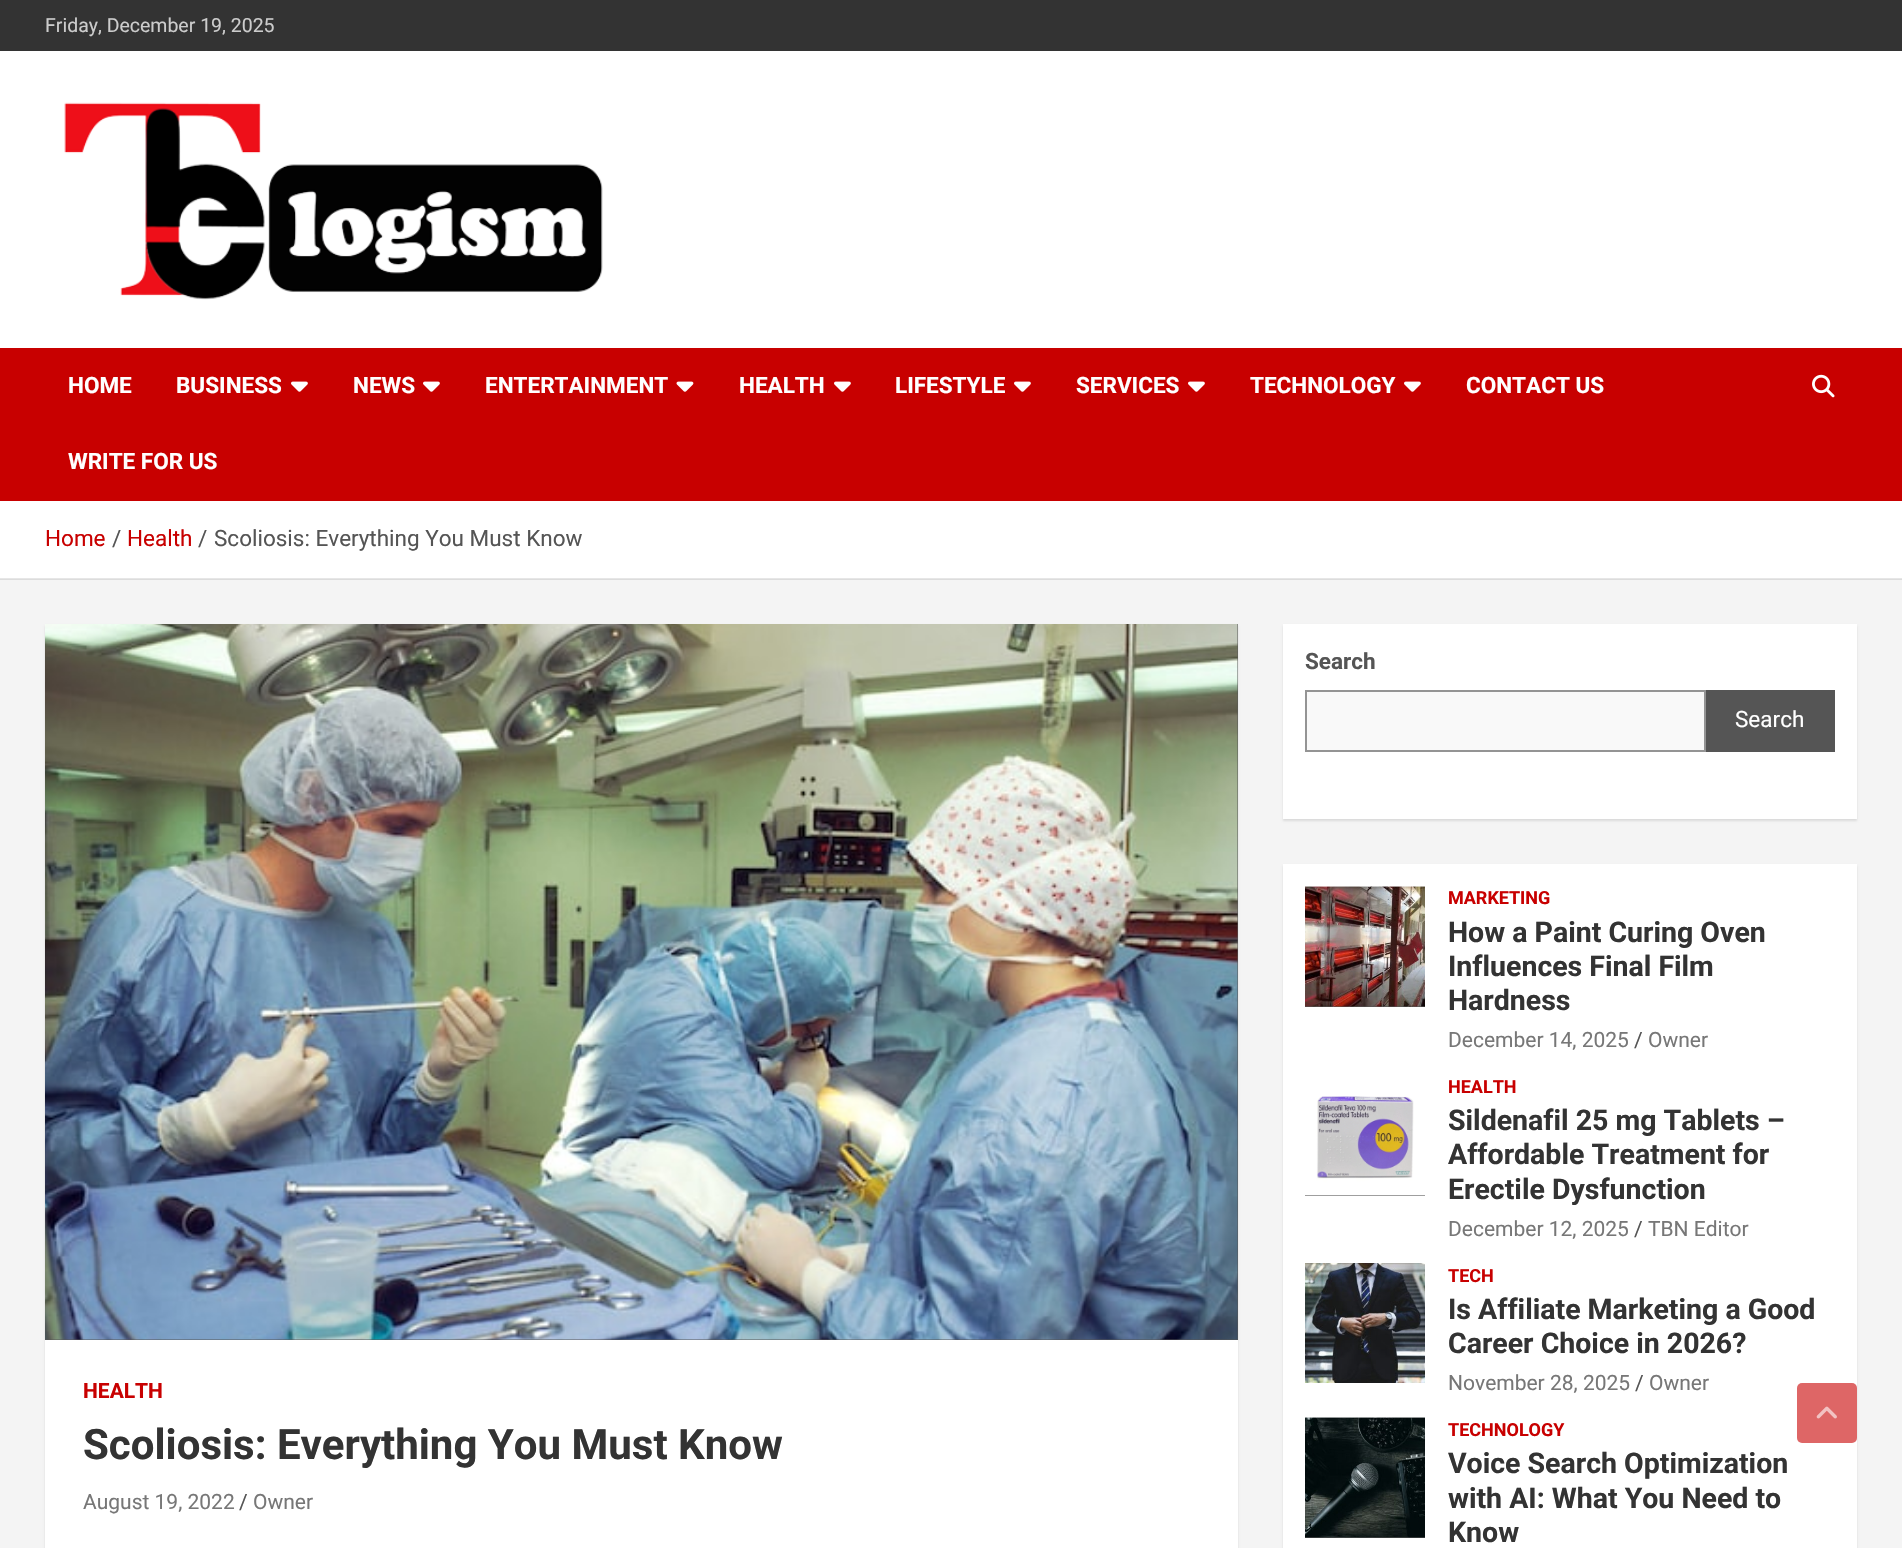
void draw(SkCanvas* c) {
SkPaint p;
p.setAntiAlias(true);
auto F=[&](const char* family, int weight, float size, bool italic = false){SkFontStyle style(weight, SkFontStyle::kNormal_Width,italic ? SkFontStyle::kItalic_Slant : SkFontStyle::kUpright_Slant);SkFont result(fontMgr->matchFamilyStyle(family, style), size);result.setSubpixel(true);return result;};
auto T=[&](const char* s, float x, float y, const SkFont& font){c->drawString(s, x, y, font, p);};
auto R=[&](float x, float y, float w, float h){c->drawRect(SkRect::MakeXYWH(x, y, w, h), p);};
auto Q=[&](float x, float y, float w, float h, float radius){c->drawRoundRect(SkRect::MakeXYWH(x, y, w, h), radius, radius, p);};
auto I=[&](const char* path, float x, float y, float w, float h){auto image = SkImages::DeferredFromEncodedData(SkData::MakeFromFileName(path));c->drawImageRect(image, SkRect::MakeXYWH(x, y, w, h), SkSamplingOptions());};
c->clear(0xfff4f4f4);
p.setColor(0xffdcdcdc);
R(0,579,1902,1);
p.setColor(0xff333333);
R(0,0,1902,51);
auto f1 = F("Roboto",400,19.5);
p.setColor(0xffcccccc);
T("Friday, December 19, 2025",45,32,f1);
p.setColor(0xffffffff);
R(0,51,1902,297);
I("1.png",64,102,539,198);
p.setColor(0xffc80000);
R(0,348,1902,153);
auto f2 = F("Roboto",700,22.5);
p.setColor(0xffffffff);
T("HOME",68,393,f2);
T("BUSINESS",176,393,f2);
I("2.png",291,381,17,11);
T("NEWS",353,393,f2);
I("2.png",423,381,17,11);
T("ENTERTAINMENT",485,393,f2);
I("3.png",676,381,18,11);
T("HEALTH",739,393,f2);
I("2.png",834,381,17,11);
T("LIFESTYLE",895,393,f2);
I("2.png",1014,381,17,11);
T("SERVICES",1076,393,f2);
I("2.png",1188,381,17,11);
T("TECHNOLOGY",1250,393,f2);
I("2.png",1404,381,17,11);
T("CONTACT US",1466,393,f2);
T("WRITE FOR US",68,469,f2);
I("4.png",1812,374,23,24);
R(0,501,1902,77);
p.setColor(0xffe6e6e6);
R(0,578,1902,1);
auto f3 = F("Roboto",400,22.5);
p.setColor(0xffc80000);
T("Home",45,546,f3);
p.setColor(0xff555555);
T("/",112,546,f3);
p.setColor(0xffc80000);
T("Health",127,546,f3);
p.setColor(0xff555555);
T("/",198,546,f3);
T("Scoliosis: Everything You Must Know",214,546,f3);
p.setColor(0x1a000000);
p.setMaskFilter(SkMaskFilter::MakeBlur(kNormal_SkBlurStyle, 1));
c->drawRect(SkRect::MakeXYWH(45,626,1193,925),p);
p.setMaskFilter(nullptr);
p.setColor(0xffffffff);
R(45,1340,1193,208);
p.setColor(0xff555555);
R(45,624,1193,716);
I("5.png",45,624,1193,716);
auto f4 = F("Roboto",700,21);
p.setColor(0xffc80000);
T("HEALTH",83,1398,f4);
auto f5 = F("Roboto",700,42);
p.setColor(0xff333333);
T("Scoliosis: Everything You Must Know",83,1459,f5);
auto f6 = F("Roboto",400,21);
p.setColor(0xff777777);
T("August 19, 2022",83,1509,f6);
p.setColor(0xff555555);
T("/",239,1509,f6);
p.setColor(0xff777777);
T("Owner",253,1509,f6);
p.setColor(0x1a000000);
p.setMaskFilter(SkMaskFilter::MakeBlur(kNormal_SkBlurStyle, 1));
c->drawRect(SkRect::MakeXYWH(1283,626,574,195),p);
p.setMaskFilter(nullptr);
p.setColor(0xffffffff);
R(1283,624,574,195);
p.setColor(0xff555555);
T("Search",1305,669,f2);
p.setColor(0xfff9f9f9);
c->drawRect(SkRect::MakeXYWH(1306,691,399,60),p);
p.setStroke(true);
p.setStrokeWidth(2);
p.setColor(0xff949494);
c->drawRect(SkRect::MakeXYWH(1306,691,399,60),p);
p.setStroke(false);
p.setColor(0xff555555);
R(1706,690,129,62);
p.setColor(0xffffffff);
T("Search",1735,727,f3);
p.setColor(0x1a000000);
p.setMaskFilter(SkMaskFilter::MakeBlur(kNormal_SkBlurStyle, 1));
c->drawRect(SkRect::MakeXYWH(1283,866,574,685),p);
p.setMaskFilter(nullptr);
p.setColor(0xffffffff);
R(1283,864,574,684);
p.setColor(0xff555555);
R(1305,1006,120,1);
I("6.png",1305,886,120,121);
auto f7 = F("Roboto",700,18);
p.setColor(0xffc80000);
T("MARKETING",1448,904,f7);
auto f8 = F("Roboto",700,28.5);
p.setColor(0xff333333);
T("How a Paint Curing Oven",1448,942,f8);
T("Influences Final Film",1448,976,f8);
T("Hardness",1448,1010,f8);
p.setColor(0xff777777);
T("December 14, 2025",1448,1047,f6);
p.setColor(0xff555555);
T("/",1634,1047,f6);
p.setColor(0xff777777);
T("Owner",1648,1047,f6);
p.setColor(0xff555555);
R(1305,1195,120,1);
I("7.png",1305,1076,120,120);
p.setColor(0xffc80000);
T("HEALTH",1448,1093,f7);
p.setColor(0xff333333);
T("Sildenafil 25 mg Tablets –",1448,1130,f8);
T("Affordable Treatment for",1448,1164,f8);
T("Erectile Dysfunction",1448,1199,f8);
p.setColor(0xff777777);
T("December 12, 2025",1448,1236,f6);
p.setColor(0xff555555);
T("/",1634,1236,f6);
p.setColor(0xff777777);
T("TBN Editor",1648,1236,f6);
I("8.png",1305,1263,120,120);
p.setColor(0xffc80000);
T("TECH",1448,1282,f7);
p.setColor(0xff333333);
T("Is Affiliate Marketing a Good",1448,1319,f8);
T("Career Choice in 2026?",1448,1353,f8);
p.setColor(0xff777777);
T("November 28, 2025",1448,1390,f6);
p.setColor(0xff555555);
T("/",1635,1390,f6);
p.setColor(0xff777777);
T("Owner",1649,1390,f6);
p.setColor(0xff555555);
R(1305,1537,120,1);
I("9.png",1305,1417,120,121);
p.setColor(0xffc80000);
T("TECHNOLOGY",1448,1436,f7);
p.setColor(0xff333333);
T("Voice Search Optimization",1448,1473,f8);
T("with AI: What You Need to",1448,1508,f8);
T("Know",1448,1542,f8);
p.setColor(0xffde6666);
Q(1797,1383,60,60,5);
I("10.png",1816,1406,21,13);
}
